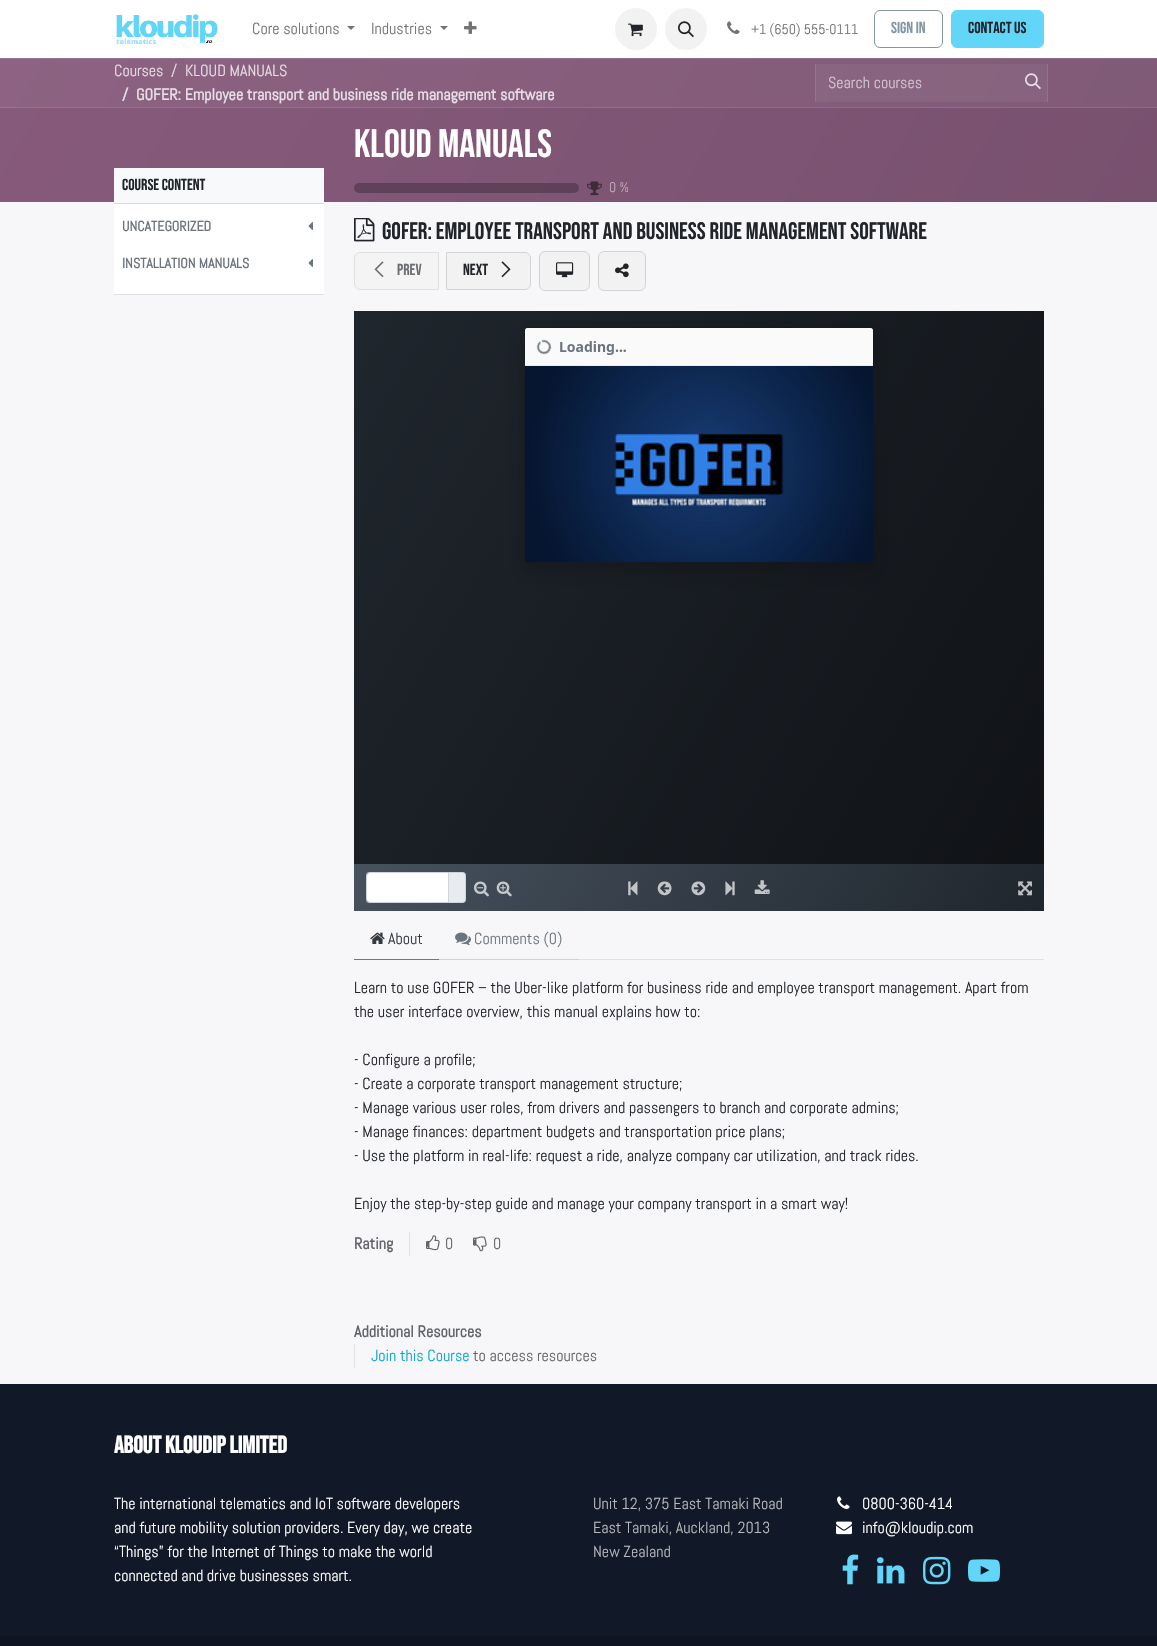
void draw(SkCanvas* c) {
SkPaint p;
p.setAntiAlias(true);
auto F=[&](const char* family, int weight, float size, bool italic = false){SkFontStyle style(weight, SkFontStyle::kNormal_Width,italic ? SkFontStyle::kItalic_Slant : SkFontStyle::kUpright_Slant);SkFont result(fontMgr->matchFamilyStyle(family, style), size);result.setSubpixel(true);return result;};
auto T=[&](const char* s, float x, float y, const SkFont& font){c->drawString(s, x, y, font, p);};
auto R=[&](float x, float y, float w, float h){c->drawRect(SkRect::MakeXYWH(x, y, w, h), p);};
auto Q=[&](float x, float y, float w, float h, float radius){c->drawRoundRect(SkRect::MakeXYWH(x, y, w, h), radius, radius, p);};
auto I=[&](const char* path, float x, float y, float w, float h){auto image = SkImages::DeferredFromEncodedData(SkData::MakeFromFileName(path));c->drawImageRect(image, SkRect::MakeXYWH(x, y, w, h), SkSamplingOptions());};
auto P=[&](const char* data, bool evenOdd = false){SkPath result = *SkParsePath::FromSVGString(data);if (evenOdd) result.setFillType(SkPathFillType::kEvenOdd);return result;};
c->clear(0xffffffff);
I("1.png",116,14,102,30);
auto f1 = F("Abel",400,16);
p.setColor(0xff737373);
T("Core solutions",252,34,f1);
c->drawPath(P("M347 26h8l-4 4z"),p);
T("Industries",371,34,f1);
c->drawPath(P("M440 26h8l-4 4z"),p);
I("2.png",464,21,13,13);
p.setColor(0xfff2f2f2);
c->drawCircle(636,29,21,p);
I("3.png",628,23,15,14);
c->drawCircle(686,29,21,p);
I("4.png",678,21,16,17);
I("5.png",727,21,13,13);
auto f2 = F("Abel",400,14);
p.setColor(0xff737373);
T("+1 (650) 555-0111",751,34,f2);
p.setStroke(true);
p.setStrokeWidth(1);
p.setColor(0xff8595a2);
c->drawRoundRect(SkRect::MakeXYWH(874.5,10.5,68,37),5.5,5.5,p);
auto f3 = F("Bebas Neue",400,16);
p.setStroke(false);
T("Sign in",891,33,f3);
p.setColor(0xff62d6f9);
c->drawRoundRect(SkRect::MakeXYWH(951.5,10.5,92,37),5.5,5.5,p);
p.setStroke(true);
c->drawRoundRect(SkRect::MakeXYWH(951.5,10.5,92,37),5.5,5.5,p);
p.setStroke(false);
p.setColor(0xff212529);
T("Contact Us",968,33,f3);
p.setColor(0xfff7f7fa);
R(0,202,1157,1182);
{
const SkColor colors[] = {0xff875a7b,0xff78516f};
const float stops[] = {0,1};
const SkPoint ends[] = {{113,-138}, {1044,398}};
p.setShader(SkGradientShader::MakeLinear(ends, colors, stops, 2, SkTileMode::kClamp));
p.setAlpha(255);
}
R(0,108,1157,94);
{
const SkColor colors[] = {0xff8d6282,0xff7f5a76};
const float stops[] = {0,1};
const SkPoint ends[] = {{113,-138}, {1044,398}};
p.setShader(SkGradientShader::MakeLinear(ends, colors, stops, 2, SkTileMode::kClamp));
p.setAlpha(255);
}
R(0,59,1157,48);
{
const SkColor colors[] = {0xff936a88,0xff85627d};
const float stops[] = {0,1};
const SkPoint ends[] = {{113,-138}, {1044,398}};
p.setShader(SkGradientShader::MakeLinear(ends, colors, stops, 2, SkTileMode::kClamp));
p.setAlpha(255);
}
R(816,64,231,38);
{
const SkColor colors[] = {0xff98728f,0xff8c6b84};
const float stops[] = {0,1};
const SkPoint ends[] = {{113,-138}, {1044,398}};
p.setShader(SkGradientShader::MakeLinear(ends, colors, stops, 2, SkTileMode::kClamp));
p.setAlpha(255);
}
R(0,107,1157,1);
R(0,58,1157,1);
p.setShader(nullptr);
p.setColor(0xffe8dfe6);
T("Courses",114,76,f1);
T("/",171,76,f1);
T("KLOUD MANUALS",185,76,f1);
auto f4 = F("Abel",700,16);
T("/",122,100,f4);
T("GOFER: Employee transport and business ride management software",136,100,f4);
p.setColor(0xff93738c);
R(1047,64,1,38);
p.setColor(0xff95748d);
R(815,64,1,38);
p.setColor(0xffd5c7d1);
T("Search courses",828,88,f1);
I("6.png",1025,73,16,17);
auto f5 = F("Bebas Neue",400,39.5);
p.setColor(0xffffffff);
T("KLOUD MANUALS",354,157,f5);
p.setColor(0x40000000);
Q(354,183,225,10,5);
I("7.png",587,181,15,15);
p.setColor(0xffbfaaba);
T("0 %",609,192,f2);
p.setColor(0xffffffff);
R(114,204,210,90);
p.setColor(0xffdededf);
R(114,294,210,1);
p.setColor(0xfff8f9fa);
R(114,168,210,34);
p.setColor(0xffd8d9db);
R(114,203,210,1);
p.setColor(0xff212529);
T("Course content",122,190,f3);
auto f6 = F("Abel",700,14);
p.setColor(0xff6c757d);
T("UNCATEGORIZED",122,231,f6);
I("8.png",308,222,5,8);
T("INSTALLATION MANUALS",122,268,f6);
I("8.png",308,259,5,8);
I("9.png",354,218,21,24);
auto f7 = F("Bebas Neue",400,23.9);
p.setColor(0xff212529);
T("GOFER: Employee transport and business ride management software",382,239,f7);
p.setColor(0xfff4f4f5);
c->drawPath(P("M360 252.5h78.5v37h-78.5c-3 0-5.5-2.5-5.5-5.5v-26c0-3 2.5-5.5 5.5-5.5z"),p);
p.setStroke(true);
p.setColor(0xffe0e0e1);
c->drawPath(P("M360 252.5h78.5v37h-78.5c-3 0-5.5-2.5-5.5-5.5v-26c0-3 2.5-5.5 5.5-5.5z"),p);
I("10.png",374,261,10,17);
p.setStroke(false);
p.setColor(0xff6c6f72);
T("Prev",397,275,f3);
p.setColor(0xfff3f2f2);
c->drawPath(P("M446.5 252.5h78.5c3 0 5.5 2.5 5.5 5.5v26c0 3-2.5 5.5-5.5 5.5h-78.5z"),p);
p.setStroke(true);
p.setColor(0xffd4d3d4);
c->drawPath(P("M446.5 252.5h78.5c3 0 5.5 2.5 5.5 5.5v26c0 3-2.5 5.5-5.5 5.5h-78.5z"),p);
p.setStroke(false);
p.setColor(0xff212529);
T("Next",463,275,f3);
I("11.png",501,261,10,17);
p.setColor(0xfff3f2f2);
c->drawRoundRect(SkRect::MakeXYWH(539.5,251.5,50,39),5.5,5.5,p);
p.setStroke(true);
p.setColor(0xffd4d3d4);
c->drawRoundRect(SkRect::MakeXYWH(539.5,251.5,50,39),5.5,5.5,p);
I("12.png",556,262,18,16);
p.setStroke(false);
p.setColor(0xfff3f2f2);
c->drawRoundRect(SkRect::MakeXYWH(598.5,251.5,47,39),5.5,5.5,p);
p.setStroke(true);
p.setColor(0xffd4d3d4);
c->drawRoundRect(SkRect::MakeXYWH(598.5,251.5,47,39),5.5,5.5,p);
I("13.png",615,263,14,15);
I("14.png",354,311,690,600);
p.setStroke(false);
p.setColor(0xffdee2e6);
R(579,959,465,1);
p.setColor(0xff28a745);
R(354,959,85,1);
I("15.png",370,932,15,12);
p.setColor(0xff343a40);
T("About",388,944,f1);
p.setColor(0xffcdd2d6);
R(439,959,140,1);
I("16.png",455,932,16,14);
p.setColor(0xff6c757d);
T("Comments (0)",474,944,f1);
p.setColor(0xff212529);
T("Learn to use GOFER – the Uber-like platform for business ride and employee transport management. Apart from",354,993,f1);
T("the user interface overview, this manual explains how to:",354,1017,f1);
T("- Configure a profile;",354,1065,f1);
T("- Create a corporate transport management structure;",354,1089,f1);
T("- Manage various user roles, from drivers and passengers to branch and corporate admins;",354,1113,f1);
T("- Manage finances: department budgets and transportation price plans;",354,1137,f1);
T("- Use the platform in real-life: request a ride, analyze company car utilization, and track rides.",354,1161,f1);
T("Enjoy the step-by-step guide and manage your company transport in a smart way!",354,1209,f1);
p.setColor(0xff616468);
T("Rating",354,1249,f4);
p.setColor(0xffe0e1e4);
R(409,1232,1,24);
I("17.png",426,1235,14,16);
p.setColor(0xff616468);
T("0",445,1249,f1);
I("18.png",473,1236,14,16);
T("0",493,1249,f1);
T("Additional Resources",354,1337,f4);
p.setColor(0xffe0e1e4);
R(354,1344,1,24);
p.setColor(0xff08a4d3);
T("Join this Course",371,1361,f1);
p.setColor(0xff616468);
T("to access resources",473,1361,f1);
p.setColor(0xff111827);
R(0,1384,1157,252);
auto f8 = F("Bebas Neue",700,23.9);
p.setColor(0xffffffff);
T("About kloudip limited",114,1453,f8);
T("The international telematics and IoT software developers",114,1509,f1);
T("and future mobility solution providers. Every day, we create",114,1533,f1);
T("“Things” for the Internet of Things to make the world",114,1557,f1);
T("connected and drive businesses smart.",114,1581,f1);
p.setColor(0xffb8babe);
T("Unit 12, 375 East Tamaki Road",593,1509,f1);
T("East Tamaki, Auckland, 2013",593,1533,f1);
T("New Zealand",593,1557,f1);
I("19.png",837,1496,13,13);
p.setColor(0xffffffff);
T("0800-360-414",862,1509,f1);
I("20.png",836,1521,16,14);
T("info@kloudip.com",862,1533,f1);
I("21.png",842,1554,17,31);
I("22.png",877,1557,28,27);
I("23.png",923,1556,28,29);
I("24.png",968,1559,32,23);
p.setColor(0xff0e1421);
R(0,1636,1157,10);
}
